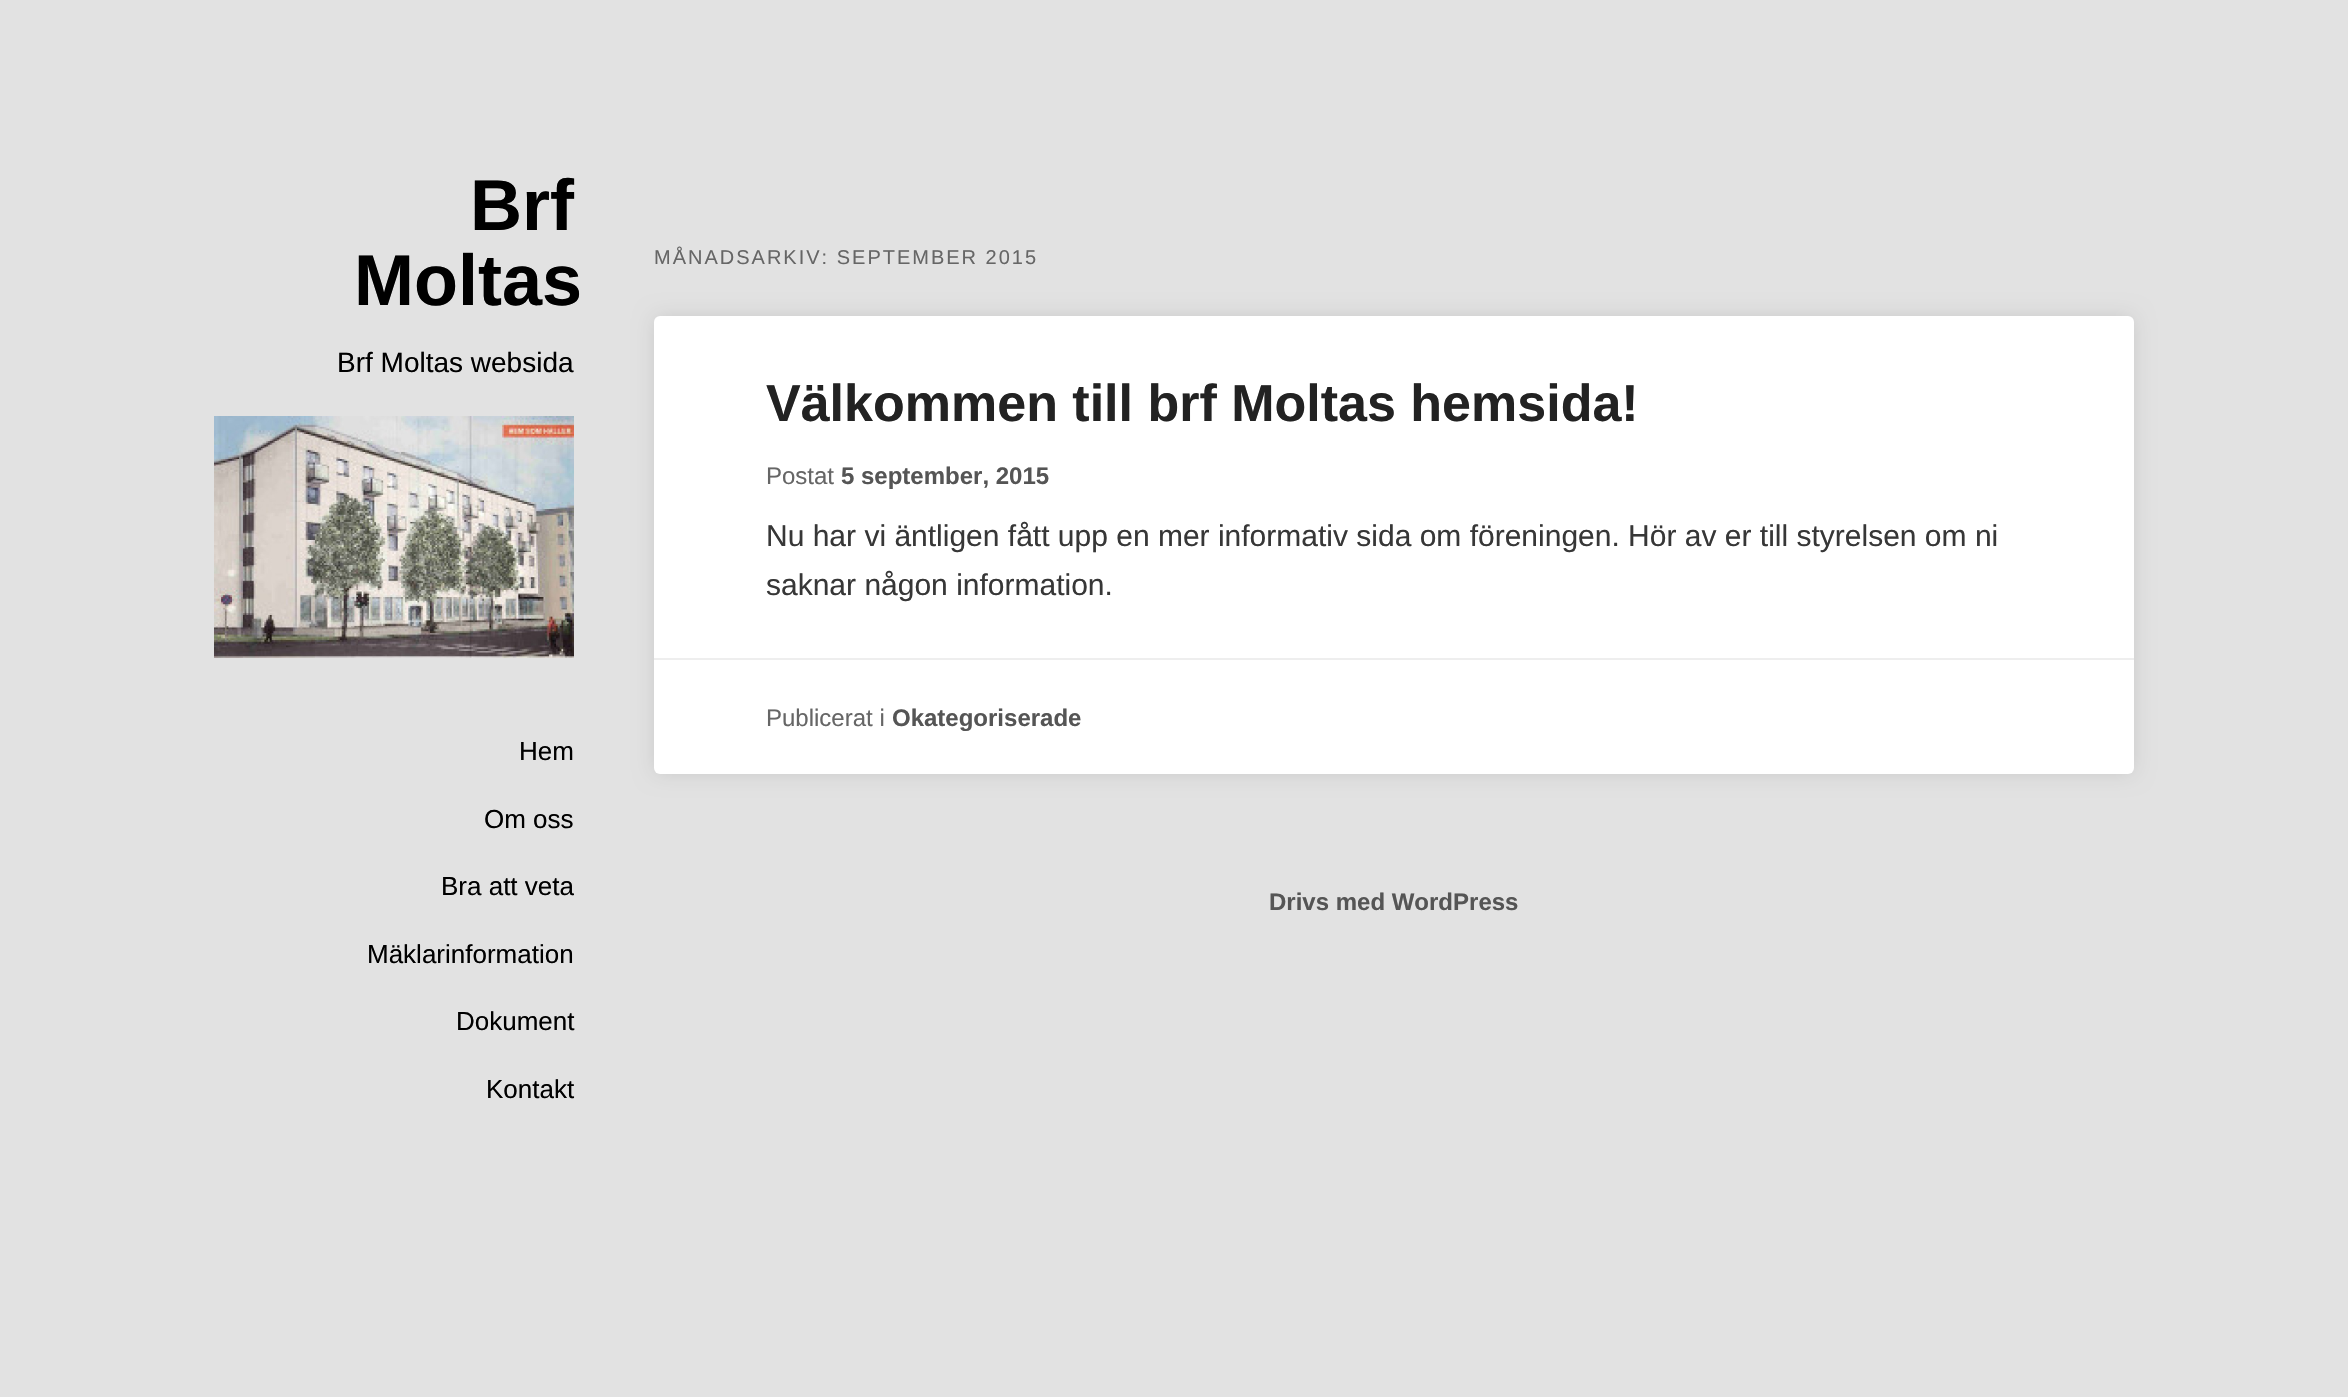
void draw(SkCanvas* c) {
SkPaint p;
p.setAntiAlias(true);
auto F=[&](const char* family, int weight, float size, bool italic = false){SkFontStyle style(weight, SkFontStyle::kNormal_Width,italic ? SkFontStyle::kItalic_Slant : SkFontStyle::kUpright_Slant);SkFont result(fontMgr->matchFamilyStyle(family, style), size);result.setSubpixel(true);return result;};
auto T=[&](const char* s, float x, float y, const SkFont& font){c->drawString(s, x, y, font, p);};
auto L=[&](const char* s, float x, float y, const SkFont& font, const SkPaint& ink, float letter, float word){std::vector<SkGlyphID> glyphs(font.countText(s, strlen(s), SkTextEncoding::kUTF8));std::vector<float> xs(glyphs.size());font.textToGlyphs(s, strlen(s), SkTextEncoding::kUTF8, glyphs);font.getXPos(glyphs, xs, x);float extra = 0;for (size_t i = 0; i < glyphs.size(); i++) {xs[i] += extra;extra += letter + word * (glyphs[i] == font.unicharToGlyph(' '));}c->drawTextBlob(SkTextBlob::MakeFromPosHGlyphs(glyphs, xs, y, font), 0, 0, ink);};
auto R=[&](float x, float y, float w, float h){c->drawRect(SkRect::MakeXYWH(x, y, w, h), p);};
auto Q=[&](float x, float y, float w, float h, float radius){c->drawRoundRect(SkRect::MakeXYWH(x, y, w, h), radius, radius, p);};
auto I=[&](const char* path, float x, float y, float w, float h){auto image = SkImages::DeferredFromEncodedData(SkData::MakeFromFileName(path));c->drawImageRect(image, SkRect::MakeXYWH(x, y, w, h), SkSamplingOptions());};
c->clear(0xffe2e2e2);
auto f1 = F("Liberation Sans",700,72);
p.setColor(0xff000000);
T("Brf",470,230,f1);
T("Moltas",354,305,f1);
auto f2 = F("Liberation Sans",400,28);
T("Brf Moltas websida",337,372,f2);
I("1.png",214,416,360,242);
auto f3 = F("Liberation Sans",400,26);
T("Hem",519,760,f3);
T("Om oss",484,828,f3);
T("Bra att veta",441,895,f3);
T("Mäklarinformation",367,963,f3);
T("Dokument",456,1030,f3);
T("Kontakt",486,1098,f3);
auto f4 = F("Liberation Sans",400,20);
p.setColor(0xff666666);
L("MÅNADSARKIV: SEPTEMBER 2015",654,264,f4,p,2,0);
p.setColor(0x1a000000);
p.setMaskFilter(SkMaskFilter::MakeBlur(kNormal_SkBlurStyle, 10));
c->drawRoundRect(SkRect::MakeXYWH(654,316,1480,458),6,6,p);
p.setMaskFilter(nullptr);
p.setColor(0xffffffff);
Q(654,316,1480,458,6);
auto f5 = F("Liberation Sans",700,52);
p.setColor(0xff222222);
T("Välkommen till brf Moltas hemsida!",766,421,f5);
auto f6 = F("Liberation Sans",400,24);
p.setColor(0xff666666);
T("Postat",766,484,f6);
auto f7 = F("Liberation Sans",700,24);
p.setColor(0xff555555);
T("5 september, 2015",841,484,f7);
p.setColor(0xffeeeeee);
R(654,658,1480,2);
auto f8 = F("Liberation Sans",400,30);
p.setColor(0xff373737);
T("Nu har vi äntligen fått upp en mer informativ sida om föreningen. Hör av er till styrelsen om ni",766,546,f8);
T("saknar någon information.",766,595,f8);
p.setColor(0xff666666);
T("Publicerat i",766,726,f6);
p.setColor(0xff555555);
T("Okategoriserade",892,726,f7);
T("Drivs med WordPress",1269,910,f7);
}
